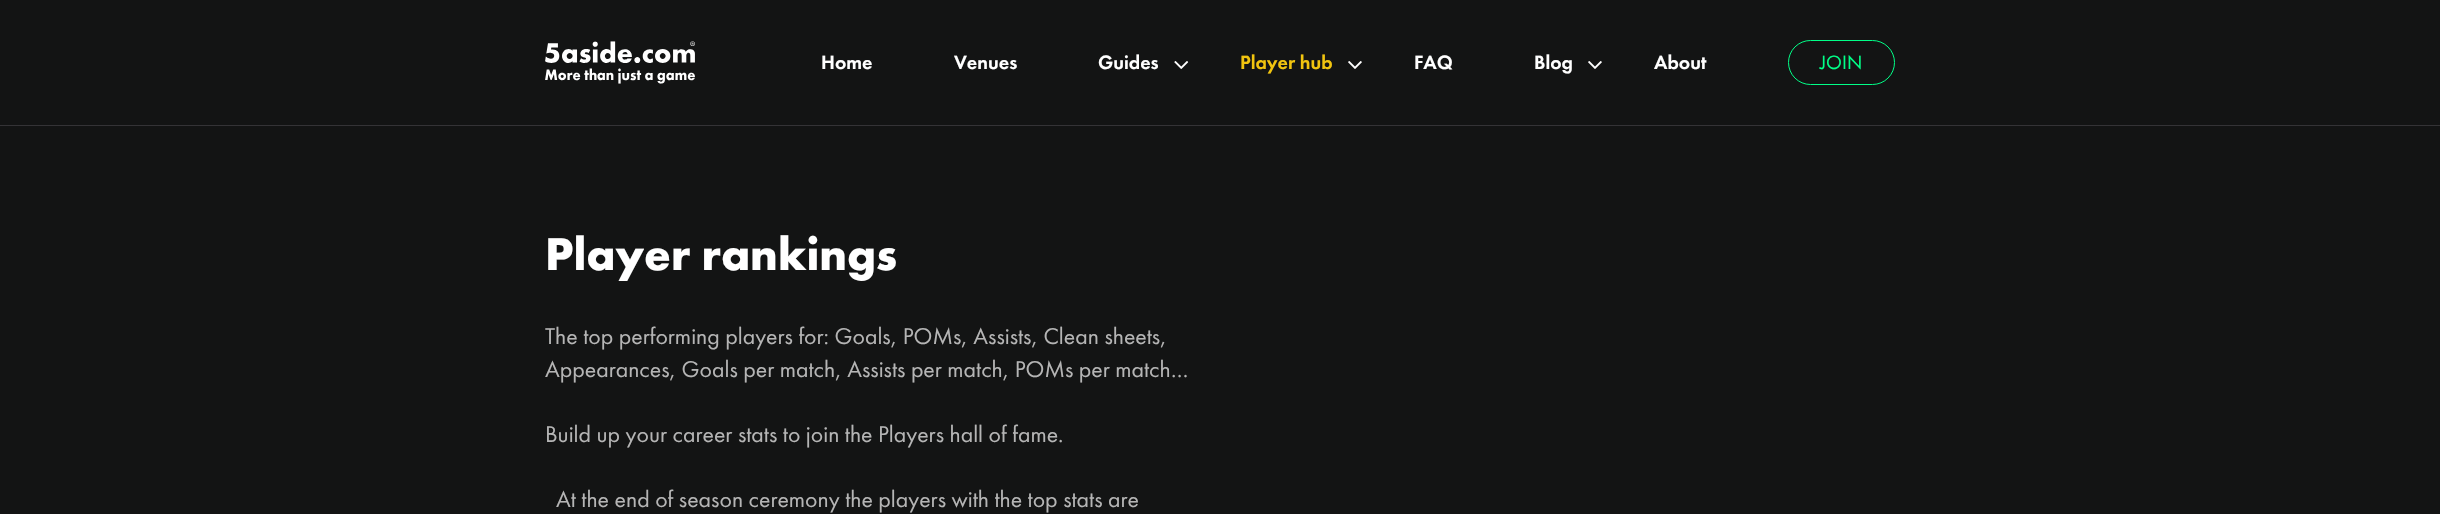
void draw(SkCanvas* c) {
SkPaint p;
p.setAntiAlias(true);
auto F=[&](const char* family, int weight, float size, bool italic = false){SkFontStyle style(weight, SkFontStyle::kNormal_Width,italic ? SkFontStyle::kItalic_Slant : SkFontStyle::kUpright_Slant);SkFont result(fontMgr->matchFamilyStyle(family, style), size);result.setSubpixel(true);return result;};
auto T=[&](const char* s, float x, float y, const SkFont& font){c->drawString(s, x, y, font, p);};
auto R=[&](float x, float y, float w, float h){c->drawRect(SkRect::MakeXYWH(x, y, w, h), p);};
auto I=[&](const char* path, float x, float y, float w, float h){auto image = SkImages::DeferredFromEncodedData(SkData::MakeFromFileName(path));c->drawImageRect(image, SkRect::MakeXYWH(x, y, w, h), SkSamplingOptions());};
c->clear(0xff131414);
p.setColor(0xff343336);
R(0,125,2440,1);
I("1.png",545,41,150,43);
auto f1 = F("Futura PT",500,20);
p.setColor(0xffffffff);
T("Home",821,69,f1);
T("Venues",954,69,f1);
T("Guides",1098,69,f1);
I("2.png",1174,61,15,8);
p.setColor(0xfff1c40f);
T("Player hub",1240,69,f1);
I("3.png",1348,61,14,8);
p.setColor(0xffffffff);
T("FAQ",1414,69,f1);
T("Blog",1534,69,f1);
I("3.png",1588,61,14,8);
T("About",1654,69,f1);
p.setStroke(true);
p.setStrokeWidth(1);
p.setColor(0xff00ff87);
c->drawRoundRect(SkRect::MakeXYWH(1788.5,40.5,106,44),22,22,p);
auto f2 = F("Futura PT",400,20);
p.setStroke(false);
T("JOIN",1820,69,f2);
auto f3 = F("Futura PT",700,47.5);
p.setColor(0xffffffff);
T("Player rankings",545,270,f3);
auto f4 = F("Futura PT",400,23.75);
p.setColor(0xffb5b5b5);
T("The top performing players for: Goals, POMs, Assists, Clean sheets,",545,344,f4);
T("Appearances, Goals per match, Assists per match, POMs per match…",545,377,f4);
T("Build up your career stats to join the Players hall of fame.",545,442,f4);
T("At the end of season ceremony the players with the top stats are",556,507,f4);
}
